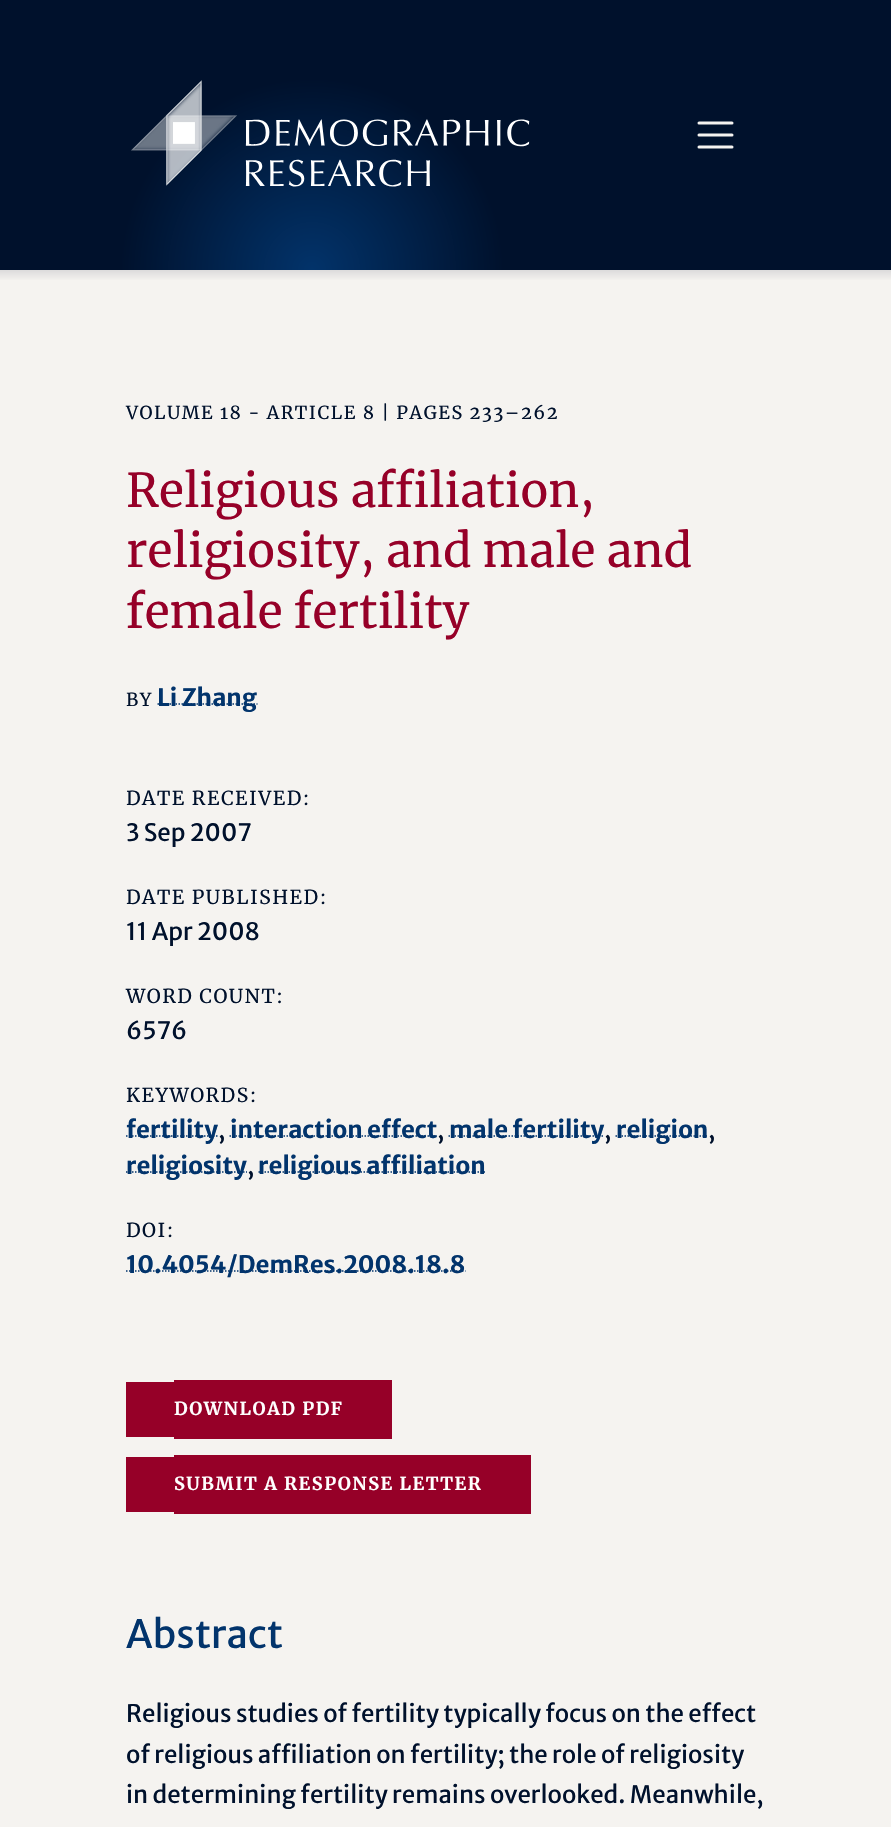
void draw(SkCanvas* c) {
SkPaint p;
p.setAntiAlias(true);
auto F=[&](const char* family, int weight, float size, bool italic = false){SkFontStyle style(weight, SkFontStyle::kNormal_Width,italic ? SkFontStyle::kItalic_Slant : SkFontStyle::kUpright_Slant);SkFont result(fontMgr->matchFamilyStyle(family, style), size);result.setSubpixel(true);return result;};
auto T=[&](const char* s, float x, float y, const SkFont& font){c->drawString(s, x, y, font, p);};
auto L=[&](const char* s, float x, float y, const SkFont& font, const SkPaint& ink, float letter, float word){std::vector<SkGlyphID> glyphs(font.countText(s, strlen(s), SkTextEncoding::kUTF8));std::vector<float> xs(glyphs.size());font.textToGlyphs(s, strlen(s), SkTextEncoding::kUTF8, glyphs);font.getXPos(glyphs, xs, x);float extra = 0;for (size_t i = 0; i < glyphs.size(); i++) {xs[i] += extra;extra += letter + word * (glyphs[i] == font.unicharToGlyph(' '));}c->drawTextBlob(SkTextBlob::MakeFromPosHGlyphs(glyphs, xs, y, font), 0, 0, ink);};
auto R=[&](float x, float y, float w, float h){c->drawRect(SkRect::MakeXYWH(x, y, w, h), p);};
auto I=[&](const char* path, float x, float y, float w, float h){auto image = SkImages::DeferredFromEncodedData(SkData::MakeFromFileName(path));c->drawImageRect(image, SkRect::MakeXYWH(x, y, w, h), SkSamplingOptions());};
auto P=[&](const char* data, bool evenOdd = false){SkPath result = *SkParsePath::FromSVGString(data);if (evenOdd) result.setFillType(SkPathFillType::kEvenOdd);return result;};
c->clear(0xfff5f3f0);
{
const SkColor colors[] = {0xff02336a,0xff00112c,0xff00112c};
const float stops[] = {0,.3,.7};
p.setShader(SkGradientShader::MakeRadial({312,270}, 639, colors, stops, 3, SkTileMode::kClamp));
p.setAlpha(255);
}
R(0,0,891,270);
I("1.png",131,80,399,107);
p.setStroke(true);
p.setStrokeWidth(3);
p.setStrokeCap(SkPaint::kRound_Cap);
p.setShader(nullptr);
p.setColor(0xfff5f3f0);
c->drawPath(P("M699 123h33m-33 12h33m-33 12h33"),p);
p.setStroke(false);
{
const SkColor colors[] = {0xffdcdbdb,0xfff5f3f0};
const float stops[] = {0,1};
const SkPoint ends[] = {{446,270}, {446,281}};
p.setShader(SkGradientShader::MakeLinear(ends, colors, stops, 2, SkTileMode::kClamp));
p.setAlpha(255);
}
R(0,270,891,10);
auto f1 = F("Merriweather",400,18);
p.setShader(nullptr);
p.setColor(0xff00112c);
L("VOLUME 18 - ARTICLE 8 | PAGES 233–262",126,419,f1,p,1.5,0);
auto f2 = F("Merriweather",400,46.4);
p.setColor(0xff960028);
T("Religious affiliation,",126,507,f2);
T("religiosity, and male and",126,567,f2);
T("female fertility",126,628,f2);
p.setColor(0xff00112c);
L("BY",126,706,f1,p,1.5,0);
p.setStroke(true);
p.setStrokeWidth(1.5);
p.setStrokeCap(SkPaint::kButt_Cap);
p.setColor(0xff02346c);
p.setPathEffect(SkDashPathEffect::Make({{1.5f,1.5f}}, 0));
c->drawPath(P("M157.5 704h100"),p);
p.setPathEffect(nullptr);
auto f3 = F("Merriweather Sans",700,24);
p.setStroke(false);
T("Li Zhang",157,706,f3);
auto f4 = F("Merriweather",400,19.25);
p.setColor(0xff00112c);
L("DATE RECEIVED:",126,805,f4,p,1.5,0);
auto f5 = F("Merriweather Sans",400,24);
T("3 Sep 2007",126,841,f5);
L("DATE PUBLISHED:",126,904,f4,p,1.5,0);
T("11 Apr 2008",126,940,f5);
L("WORD COUNT:",126,1003,f4,p,1.5,0);
T("6576",126,1039,f5);
L("KEYWORDS:",126,1102,f4,p,1.5,0);
p.setStroke(true);
p.setColor(0xff02346c);
p.setPathEffect(SkDashPathEffect::Make({{1.5f,1.5f}}, 0));
c->drawPath(P("M126 1136h92"),p);
p.setPathEffect(nullptr);
p.setStroke(false);
T("fertility",126,1138,f3);
p.setColor(0xff00112c);
T(",",218,1138,f5);
p.setStroke(true);
p.setColor(0xff02346c);
p.setPathEffect(SkDashPathEffect::Make({{1.5f,1.5f}}, 0));
c->drawPath(P("M229.5 1136h207.5"),p);
p.setPathEffect(nullptr);
p.setStroke(false);
T("interaction effect",230,1138,f3);
p.setColor(0xff00112c);
T(",",437,1138,f5);
p.setStroke(true);
p.setColor(0xff02346c);
p.setPathEffect(SkDashPathEffect::Make({{1.5f,1.5f}}, 0));
c->drawPath(P("M448.5 1136h155.5"),p);
p.setPathEffect(nullptr);
p.setStroke(false);
T("male fertility",449,1138,f3);
p.setColor(0xff00112c);
T(",",604,1138,f5);
p.setStroke(true);
p.setColor(0xff02346c);
p.setPathEffect(SkDashPathEffect::Make({{1.5f,1.5f}}, 0));
c->drawPath(P("M615.5 1136h92.5"),p);
p.setPathEffect(nullptr);
p.setStroke(false);
T("religion",616,1138,f3);
p.setColor(0xff00112c);
T(",",708,1138,f5);
p.setStroke(true);
p.setColor(0xff02346c);
p.setPathEffect(SkDashPathEffect::Make({{1.5f,1.5f}}, 0));
c->drawPath(P("M126 1172h121"),p);
p.setPathEffect(nullptr);
p.setStroke(false);
T("religiosity",126,1174,f3);
p.setColor(0xff00112c);
T(",",247,1174,f5);
p.setStroke(true);
p.setColor(0xff02346c);
p.setPathEffect(SkDashPathEffect::Make({{1.5f,1.5f}}, 0));
c->drawPath(P("M258.5 1172h227.5"),p);
p.setPathEffect(nullptr);
p.setStroke(false);
T("religious affiliation",258,1174,f3);
p.setColor(0xff00112c);
L("DOI:",126,1237,f4,p,1.5,0);
p.setStroke(true);
p.setColor(0xff02346c);
p.setPathEffect(SkDashPathEffect::Make({{1.5f,1.5f}}, 0));
c->drawPath(P("M126 1271h339.5"),p);
p.setPathEffect(nullptr);
p.setStroke(false);
T("10.4054/DemRes.2008.18.8",126,1273,f3);
p.setColor(0xff960028);
R(174,1380,218,59);
auto f6 = F("Merriweather",700,18);
p.setColor(0xffffffff);
L("DOWNLOAD PDF",174,1415,f6,p,1.5,0);
p.setColor(0xff960028);
R(126,1382,48,55);
R(174,1455,357,59);
p.setColor(0xffffffff);
L("SUBMIT A RESPONSE LETTER",174,1490,f6,p,1.5,0);
p.setColor(0xff960028);
R(126,1457,48,55);
auto f7 = F("Merriweather Sans",400,38.5);
p.setColor(0xff02346c);
T("Abstract",126,1648,f7);
p.setColor(0xff00112c);
T("Religious studies of fertility typically focus on the effect",126,1722,f5);
T("of religious affiliation on fertility; the role of religiosity",126,1763,f5);
T("in determining fertility remains overlooked. Meanwhile,",126,1803,f5);
}
